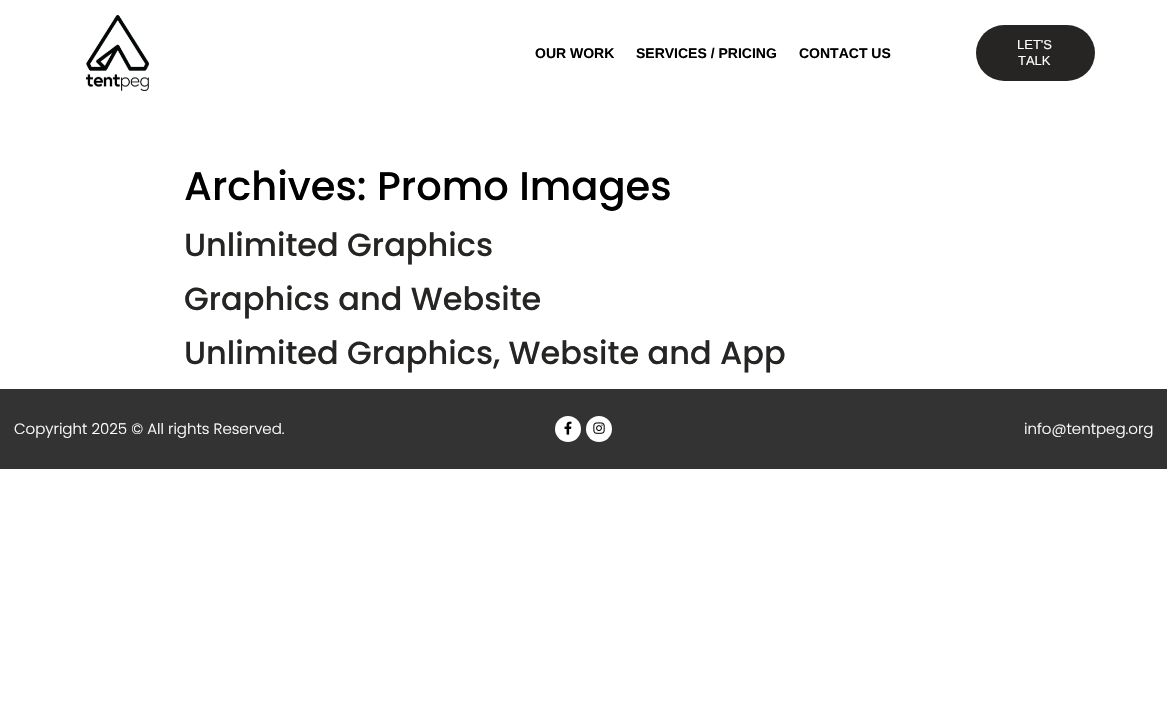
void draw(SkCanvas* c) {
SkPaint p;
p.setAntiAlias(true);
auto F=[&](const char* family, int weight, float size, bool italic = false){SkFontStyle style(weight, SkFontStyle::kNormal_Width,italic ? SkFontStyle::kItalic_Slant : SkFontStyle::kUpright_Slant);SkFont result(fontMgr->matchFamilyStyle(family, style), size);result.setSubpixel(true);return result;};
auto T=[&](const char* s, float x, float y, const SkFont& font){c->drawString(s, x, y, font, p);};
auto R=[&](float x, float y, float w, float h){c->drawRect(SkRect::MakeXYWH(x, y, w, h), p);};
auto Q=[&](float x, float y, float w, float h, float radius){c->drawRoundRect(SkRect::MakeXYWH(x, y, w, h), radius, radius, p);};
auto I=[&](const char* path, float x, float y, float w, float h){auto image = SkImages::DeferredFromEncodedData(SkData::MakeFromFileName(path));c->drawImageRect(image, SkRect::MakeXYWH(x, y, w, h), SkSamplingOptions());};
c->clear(0xffffffff);
I("1.png",85,15,64,76);
auto f1 = F("Liberation Sans",700,14);
p.setColor(0xff000000);
T("OUR WORK",535,58,f1);
T("SERVICES / PRICING",636,58,f1);
T("CONTACT US",799,58,f1);
p.setColor(0xff262523);
Q(976,25,119,56,28);
auto f2 = F("Liberation Sans",400,13);
p.setColor(0xffffffff);
T("LET'S",1017,49,f2);
T("TALK",1018,65,f2);
auto f3 = F("Poppins",500,40);
p.setColor(0xff000000);
T("Archives: Promo Images",184,200,f3);
auto f4 = F("Poppins",500,32);
p.setColor(0xff262523);
T("Unlimited Graphics",184,256,f4);
T("Graphics and Website",184,310,f4);
T("Unlimited Graphics, Website and App",184,364,f4);
p.setColor(0xff333333);
R(0,389,1167,80);
auto f5 = F("Poppins",300,15);
p.setColor(0xffffffff);
T("Copyright 2025 © All rights Reserved.",14,434,f5);
c->drawCircle(568,429,13,p);
I("2.png",564,421,8,14);
c->drawCircle(599,429,13,p);
I("3.png",593,422,12,12);
T("info@tentpeg.org",1024,434,f5);
}
